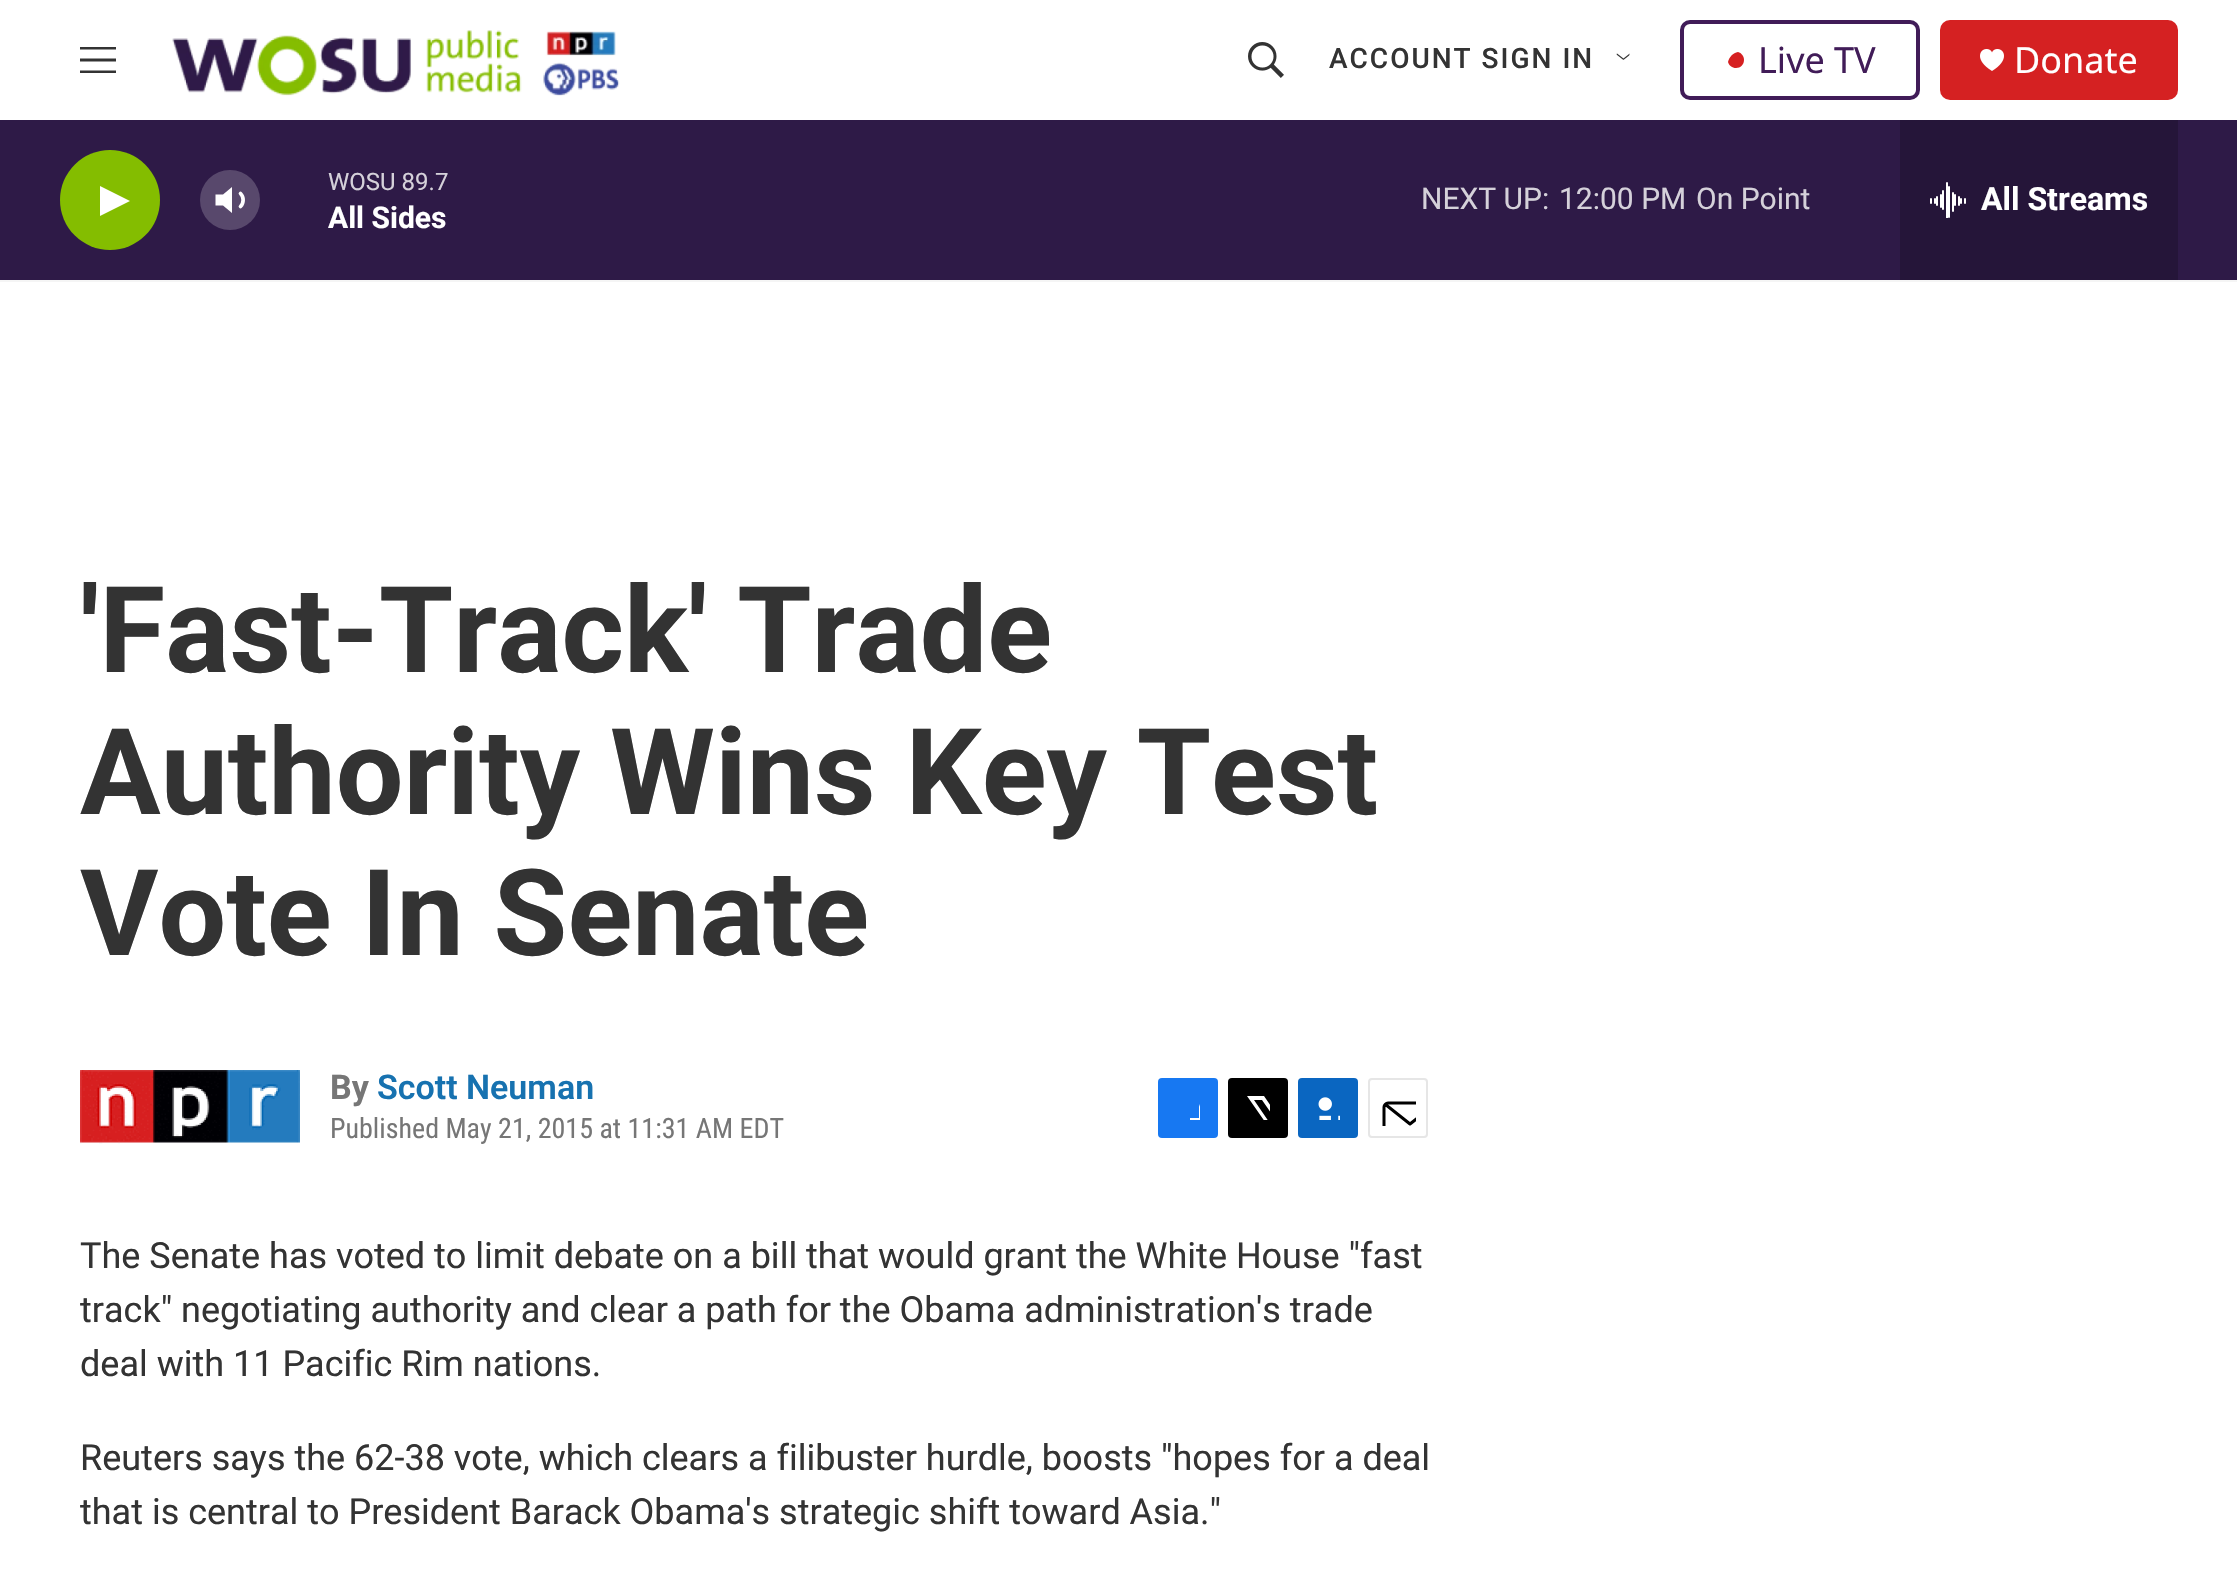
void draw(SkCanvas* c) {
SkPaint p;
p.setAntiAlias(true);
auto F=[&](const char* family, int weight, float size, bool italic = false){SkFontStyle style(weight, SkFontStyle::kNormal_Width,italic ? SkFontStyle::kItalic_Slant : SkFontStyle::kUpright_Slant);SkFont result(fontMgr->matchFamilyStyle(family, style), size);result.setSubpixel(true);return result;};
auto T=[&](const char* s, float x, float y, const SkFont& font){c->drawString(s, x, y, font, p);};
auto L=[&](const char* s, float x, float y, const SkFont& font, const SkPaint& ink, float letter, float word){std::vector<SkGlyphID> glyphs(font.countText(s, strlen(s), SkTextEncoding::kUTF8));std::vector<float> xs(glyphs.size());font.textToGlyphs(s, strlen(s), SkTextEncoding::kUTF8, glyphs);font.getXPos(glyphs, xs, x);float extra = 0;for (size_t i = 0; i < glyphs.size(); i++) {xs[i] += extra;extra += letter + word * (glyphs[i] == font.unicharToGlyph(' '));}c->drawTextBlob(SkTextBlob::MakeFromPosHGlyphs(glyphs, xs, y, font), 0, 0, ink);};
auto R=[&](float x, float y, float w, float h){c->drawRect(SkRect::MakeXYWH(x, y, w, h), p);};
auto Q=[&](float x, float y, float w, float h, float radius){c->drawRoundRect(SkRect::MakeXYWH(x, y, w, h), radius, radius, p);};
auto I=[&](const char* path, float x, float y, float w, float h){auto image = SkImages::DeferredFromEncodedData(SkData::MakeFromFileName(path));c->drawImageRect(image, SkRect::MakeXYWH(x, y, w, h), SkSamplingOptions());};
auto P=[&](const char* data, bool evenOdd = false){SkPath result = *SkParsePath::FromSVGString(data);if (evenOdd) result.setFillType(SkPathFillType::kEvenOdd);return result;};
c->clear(0xffffffff);
p.setColor(0xfff5f5f5);
R(0,280,2237,2);
p.setColor(0xff333333);
c->drawPath(P("M80 61.5v-3h36v3zm0-12v-2.5h36v2.5zm0 23.5v-2.5h36v2.5z",true),p);
I("1.png",172,30,448,66);
I("2.png",1248,42,36,36);
auto f1 = F("Roboto",500,28);
L("ACCOUNT SIGN IN",1329,68,f1,p,2,0);
I("3.png",1616,53,14,7);
p.setStroke(true);
p.setStrokeWidth(4);
p.setColor(0xff411c58);
c->drawRoundRect(SkRect::MakeXYWH(1682,22,236,76),8,8,p);
p.setStroke(false);
p.setColor(0xffd62021);
c->drawPath(P("M1738 52c3.5 1 6 4 6 8c0 4.5-3.5 8-8 8c-4 0-7-2.5-8-6c1-5 5-9 10-10z"),p);
auto f2 = F("Noto Sans",400,36);
p.setColor(0xff411c58);
T("Live TV",1758,73,f2);
p.setColor(0xffd52122);
Q(1940,20,238,80,10);
I("4.png",1980,49,24,22);
p.setColor(0xffffffff);
T("Donate",2014,73,f2);
p.setColor(0xff2e1a47);
R(0,120,2237,160);
p.setColor(0xff84bd00);
c->drawCircle(110,200,50,p);
p.setColor(0xffffffff);
c->drawPath(P("M100 186l30 15l-30 15z"),p);
c->drawPath(P("M232 187l-9 7.5h-7.5v11h7.5l9 7.5z"),p);
p.setStroke(true);
p.setStrokeWidth(3.7);
p.setStrokeCap(SkPaint::kRound_Cap);
p.setStrokeJoin(SkPaint::kRound_Join);
c->drawPath(P("M240.5 193.5c3.5 3.5 3.5 9.5 0 13"),p);
p.setStroke(false);
p.setColor(0x33ffffff);
c->drawCircle(230,200,30,p);
auto f3 = F("Roboto",400,24);
p.setColor(0xffd5d1da);
T("WOSU 89.7",328,190,f3);
auto f4 = F("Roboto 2",700,30);
p.setColor(0xffffffff);
T("All Sides",328,228,f4);
auto f5 = F("Roboto",400,30);
p.setColor(0xffd5d1da);
T("NEXT UP:",1421,209,f5);
T("12:00 PM",1559,209,f5);
T("On Point",1696,209,f5);
p.setColor(0xff251539);
R(1900,120,278,160);
I("5.png",1930,182,36,36);
auto f6 = F("Roboto 2",700,32);
p.setColor(0xffffffff);
T("All Streams",1981,210,f6);
auto f7 = F("Roboto",700,120);
p.setColor(0xff333333);
T("'Fast-Track' Trade",80,672,f7);
T("Authority Wins Key Test",80,814,f7);
T("Vote In Senate",80,955,f7);
I("6.png",80,1070,220,74);
auto f8 = F("Roboto",700,34);
p.setColor(0xff767676);
T("By",330,1099,f8);
auto f9 = F("Roboto",600,34);
p.setColor(0xff1772b0);
T("Scott Neuman",377,1099,f9);
auto f10 = F("Roboto Condensed",400,28);
p.setColor(0xff767676);
T("Published May 21, 2015 at 11:31 AM EDT",330,1138,f10);
p.setColor(0xff1778f2);
Q(1158,1078,60,60,4);
c->save();
c->clipRect(SkRect::MakeXYWH(1176,1096,24,24));
p.setColor(0xffffffff);
c->drawPath(P("M1209 1138h-10v-10h-9v-10h9v-11c2-9 11-11 19-10v9c-11 0-9 3-9 12h9v5l-1 5h-8z"),p);
c->restore();
p.setColor(0xff000000);
Q(1228,1078,60,60,4);
c->save();
c->clipRect(SkRect::MakeXYWH(1246,1096,24,24));
p.setColor(0xffffffff);
c->drawPath(P("M1282 1121l6 9c0 2 1 5-1 6l-25-36h-8l26 38h-5l-3-5l-4 5h-6l8-9l-23-33h17l15 22l9-10v6z"),p);
c->restore();
p.setColor(0xff0a66c1);
Q(1298,1078,60,60,4);
I("7.png",1318,1097,22,23);
p.setStroke(true);
p.setStrokeWidth(2);
p.setStrokeCap(SkPaint::kButt_Cap);
p.setStrokeJoin(SkPaint::kMiter_Join);
p.setColor(0xffe6e6e6);
c->drawRoundRect(SkRect::MakeXYWH(1369,1079,58,58),3,3,p);
c->save();
c->clipRect(SkRect::MakeXYWH(1380,1090,36,36));
p.setStrokeWidth(3);
p.setStrokeCap(SkPaint::kRound_Cap);
p.setStrokeJoin(SkPaint::kRound_Join);
p.setColor(0xff000000);
c->drawPath(P("M1436 1134c0 2-2 3.5-4 3.5h-44c-2 0-4-1.5-4-3.5v-27c0-2 2-4 4-4h44c2 0 4 2 4 4zm-1.5-29.5l-24.5 19.5l-24.5-19.5"),p);
c->restore();
auto f11 = F("Roboto",400,36);
p.setStroke(false);
p.setColor(0xff333333);
T("The Senate has voted to limit debate on a bill that would grant the White House \"fast",80,1268,f11);
T("track\" negotiating authority and clear a path for the Obama administration's trade",80,1322,f11);
T("deal with 11 Pacific Rim nations.",80,1376,f11);
T("Reuters says the 62-38 vote, which clears a filibuster hurdle, boosts \"hopes for a deal",80,1470,f11);
T("that is central to President Barack Obama's strategic shift toward Asia.\"",80,1524,f11);
}
